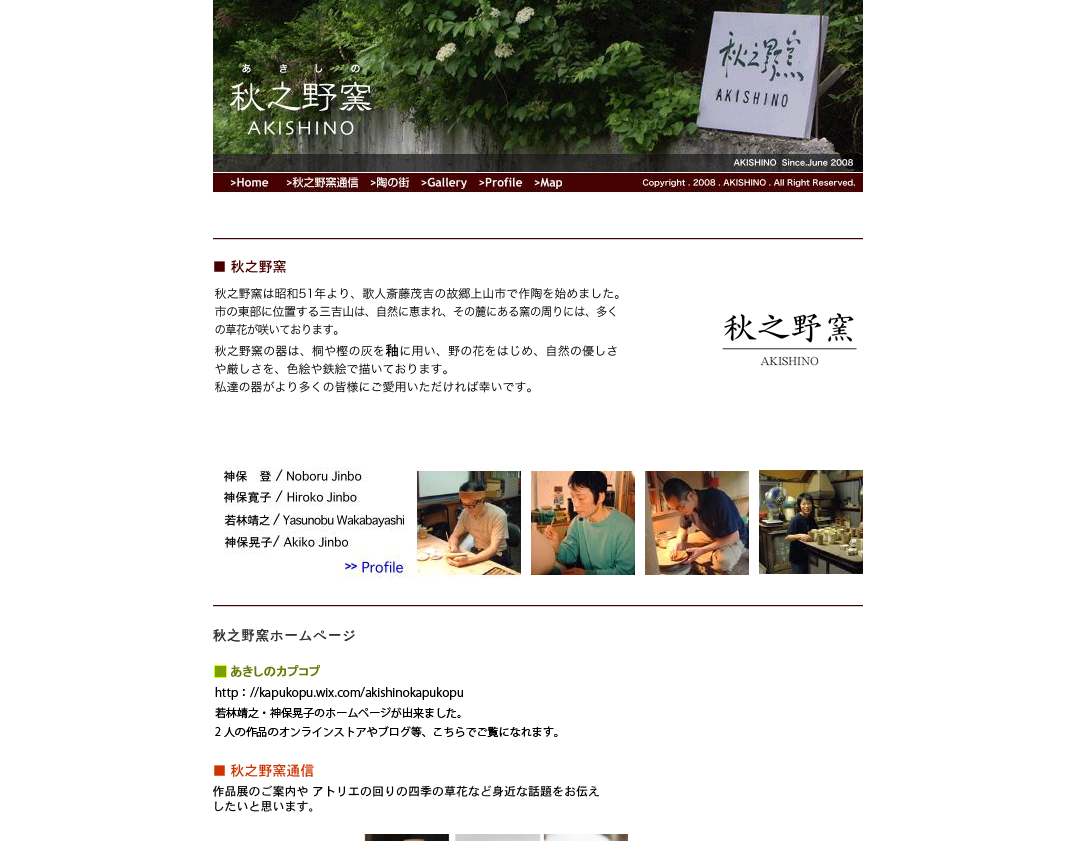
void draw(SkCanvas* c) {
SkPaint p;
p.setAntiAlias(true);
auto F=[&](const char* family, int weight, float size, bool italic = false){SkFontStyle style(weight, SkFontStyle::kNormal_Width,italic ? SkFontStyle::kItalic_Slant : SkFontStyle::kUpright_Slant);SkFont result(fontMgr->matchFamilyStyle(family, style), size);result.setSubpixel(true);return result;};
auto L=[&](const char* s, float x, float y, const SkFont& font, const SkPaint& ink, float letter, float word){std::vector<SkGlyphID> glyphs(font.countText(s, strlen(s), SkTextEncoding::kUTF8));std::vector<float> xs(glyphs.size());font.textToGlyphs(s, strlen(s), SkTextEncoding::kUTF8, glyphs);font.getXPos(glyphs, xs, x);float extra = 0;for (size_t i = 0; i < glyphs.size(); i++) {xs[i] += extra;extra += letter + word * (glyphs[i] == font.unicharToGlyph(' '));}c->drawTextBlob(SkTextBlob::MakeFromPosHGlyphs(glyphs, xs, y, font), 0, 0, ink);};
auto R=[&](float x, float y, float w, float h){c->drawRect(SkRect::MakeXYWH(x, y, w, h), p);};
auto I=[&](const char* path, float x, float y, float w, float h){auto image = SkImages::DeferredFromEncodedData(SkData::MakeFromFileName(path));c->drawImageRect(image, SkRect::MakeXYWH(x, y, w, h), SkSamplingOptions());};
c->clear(0xffffffff);
I("1.png",213,0,650,193);
p.setColor(0xff470000);
R(213,238,650,1);
p.setColor(0xffcccccc);
R(213,239,650,1);
I("2.png",214,260,72,13);
I("3.png",215,287,404,106);
I("4.png",722,313,135,53);
I("5.png",224,467,297,112);
I("6.png",531,471,104,104);
I("7.png",645,471,104,104);
I("8.png",759,470,104,104);
p.setColor(0xff470000);
R(213,605,650,1);
p.setColor(0xffcccccc);
R(213,606,650,1);
auto f1 = F("WenQuanYi Zen Hei",700,13);
p.setColor(0xff333333);
L("秋之野窯ホームページ",213,640,f1,p,1.25,0);
I("9.png",214,665,106,13);
I("10.png",215,687,343,51);
I("11.png",214,764,100,13);
I("12.png",213,785,386,27);
I("13.png",364,834,264,7);
}
